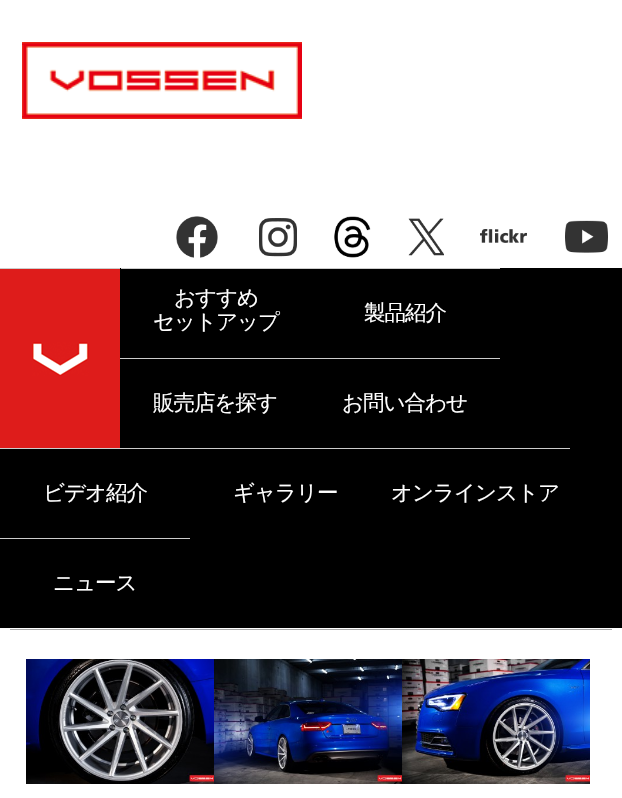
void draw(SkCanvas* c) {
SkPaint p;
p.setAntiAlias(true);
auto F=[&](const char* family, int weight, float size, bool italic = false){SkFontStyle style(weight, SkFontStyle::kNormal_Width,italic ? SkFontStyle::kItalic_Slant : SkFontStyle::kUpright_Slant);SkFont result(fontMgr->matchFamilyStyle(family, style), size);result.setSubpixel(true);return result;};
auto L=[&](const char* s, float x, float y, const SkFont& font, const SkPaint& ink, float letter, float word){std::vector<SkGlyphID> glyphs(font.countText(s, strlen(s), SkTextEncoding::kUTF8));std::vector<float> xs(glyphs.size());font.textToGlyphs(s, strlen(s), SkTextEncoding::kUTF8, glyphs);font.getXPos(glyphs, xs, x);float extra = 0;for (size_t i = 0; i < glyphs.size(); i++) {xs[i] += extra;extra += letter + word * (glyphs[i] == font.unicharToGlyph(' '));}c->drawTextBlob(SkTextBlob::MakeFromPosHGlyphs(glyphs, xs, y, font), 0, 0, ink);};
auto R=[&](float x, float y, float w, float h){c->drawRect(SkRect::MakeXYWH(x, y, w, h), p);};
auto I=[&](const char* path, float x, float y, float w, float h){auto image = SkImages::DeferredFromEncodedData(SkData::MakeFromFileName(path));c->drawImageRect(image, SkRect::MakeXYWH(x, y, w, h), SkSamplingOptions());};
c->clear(0xffffffff);
I("1.png",22,42,280,77);
I("2.png",176,216,42,42);
I("3.png",259,218,38,39);
I("4.png",334,216,37,42);
I("5.png",408,218,36,38);
I("6.png",480,229,47,14);
I("7.png",565,220,43,33);
p.setColor(0xff000000);
R(0,268,622,360);
p.setColor(0xffde1c1b);
R(0,269,120,179);
p.setColor(0xffcccccc);
R(0,268,120,1);
I("8.png",32,342,57,34);
R(121,268,379,1);
auto f1 = F("WenQuanYi Zen Hei",500,21.5);
p.setColor(0xffffffff);
L("おすすめ",174,305,f1,p,-1,0);
L("セットアップ",153,329,f1,p,-1,0);
L("製品紹介",364,320,f1,p,-1,0);
p.setColor(0xffcccccc);
R(120,358,380,1);
p.setColor(0xffffffff);
L("販売店を探す",153,410,f1,p,-1,0);
L("お問い合わせ",342,410,f1,p,-1,0);
p.setColor(0xffcccccc);
R(0,448,570,1);
p.setColor(0xffffffff);
L("ビデオ紹介",43,500,f1,p,-1,0);
L("ギャラリー",233,500,f1,p,-1,0);
L("オンラインストア",391,500,f1,p,-1,0);
p.setColor(0xffcccccc);
R(0,538,190,1);
p.setColor(0xffffffff);
L("ニュース",53,590,f1,p,-1,0);
p.setColor(0xffaaaaaa);
R(10,629,602,1);
I("9.png",26,659,188,125);
I("10.png",214,659,188,125);
I("11.png",402,659,188,125);
}
